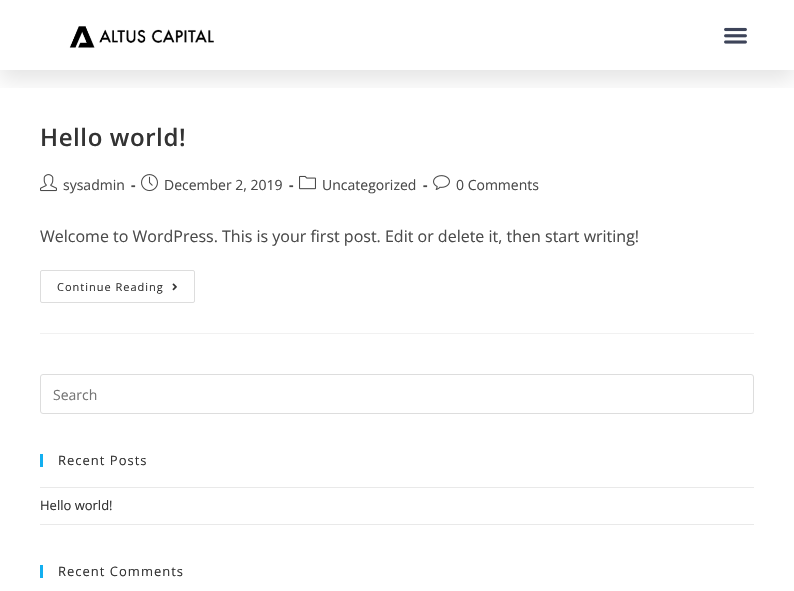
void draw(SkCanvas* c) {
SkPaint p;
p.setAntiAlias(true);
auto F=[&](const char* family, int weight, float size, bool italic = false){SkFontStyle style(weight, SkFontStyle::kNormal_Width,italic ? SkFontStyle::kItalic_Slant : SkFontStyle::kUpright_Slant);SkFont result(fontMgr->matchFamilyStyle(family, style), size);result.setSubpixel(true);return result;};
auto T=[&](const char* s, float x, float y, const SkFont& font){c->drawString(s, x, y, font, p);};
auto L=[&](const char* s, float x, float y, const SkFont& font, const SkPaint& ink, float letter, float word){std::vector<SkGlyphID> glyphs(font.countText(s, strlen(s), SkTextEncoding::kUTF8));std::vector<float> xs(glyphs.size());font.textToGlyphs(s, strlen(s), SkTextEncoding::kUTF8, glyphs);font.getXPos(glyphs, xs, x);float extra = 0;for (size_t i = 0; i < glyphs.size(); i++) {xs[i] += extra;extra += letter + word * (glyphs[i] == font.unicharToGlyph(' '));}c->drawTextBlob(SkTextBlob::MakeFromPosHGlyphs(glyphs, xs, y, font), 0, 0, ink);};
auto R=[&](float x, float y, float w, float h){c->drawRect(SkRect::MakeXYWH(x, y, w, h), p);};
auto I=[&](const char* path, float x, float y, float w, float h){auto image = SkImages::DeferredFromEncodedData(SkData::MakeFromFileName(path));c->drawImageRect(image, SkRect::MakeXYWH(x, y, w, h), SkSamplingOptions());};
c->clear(0xffffffff);
c->save();
c->clipRect(SkRect::MakeXYWH(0,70,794,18));
p.setColor(0x1a000000);
p.setMaskFilter(SkMaskFilter::MakeBlur(kNormal_SkBlurStyle, 10));
c->drawRect(SkRect::MakeXYWH(0,10,794,70),p);
p.setMaskFilter(nullptr);
c->restore();
I("1.png",69,26,145,22);
I("2.png",724,27,23,17);
p.setColor(0xfff1f1f1);
R(40,333,714,1);
auto f1 = F("Open Sans",600,24);
p.setColor(0xff333333);
L("Hello world!",40,146,f1,p,.6,0);
I("3.png",40,174,17,18);
auto f2 = F("Open Sans",400,14);
p.setColor(0xff4a4a4a);
T("sysadmin",63,190,f2);
auto f3 = F("Open Sans",700,14);
T("-",131,190,f3);
I("4.png",141,174,17,18);
T("December 2, 2019",164,190,f2);
T("-",289,190,f3);
I("5.png",299,175,17,15);
T("Uncategorized",322,190,f2);
T("-",423,190,f3);
I("6.png",433,175,17,15);
T("0 Comments",456,190,f2);
auto f4 = F("Open Sans",400,16);
T("Welcome to WordPress. This is your first post. Edit or delete it, then start writing!",40,242,f4);
p.setStroke(true);
p.setStrokeWidth(1);
p.setColor(0xffdddddd);
c->drawRoundRect(SkRect::MakeXYWH(40.5,270.5,154,32),1.5,1.5,p);
auto f5 = F("Open Sans",400,11);
p.setStroke(false);
p.setColor(0xff333333);
L("Continue Reading",57,291,f5,p,1,0);
I("7.png",172,283,5,8);
p.setStroke(true);
p.setColor(0xffdddddd);
c->drawRoundRect(SkRect::MakeXYWH(40.5,374.5,713,39),2.5,2.5,p);
p.setStroke(false);
p.setColor(0xff757575);
T("Search",53,400,f2);
p.setColor(0xff13aff0);
R(40,454,3,13);
auto f6 = F("Open Sans",400,13);
p.setColor(0xff333333);
L("Recent Posts",58,465,f6,p,1,0);
p.setColor(0xffe9e9e9);
R(40,487,714,1);
R(40,524,714,1);
p.setColor(0xff333333);
T("Hello world!",40,510,f6);
p.setColor(0xff13aff0);
R(40,565,3,13);
p.setColor(0xff333333);
L("Recent Comments",58,576,f6,p,1,0);
}
